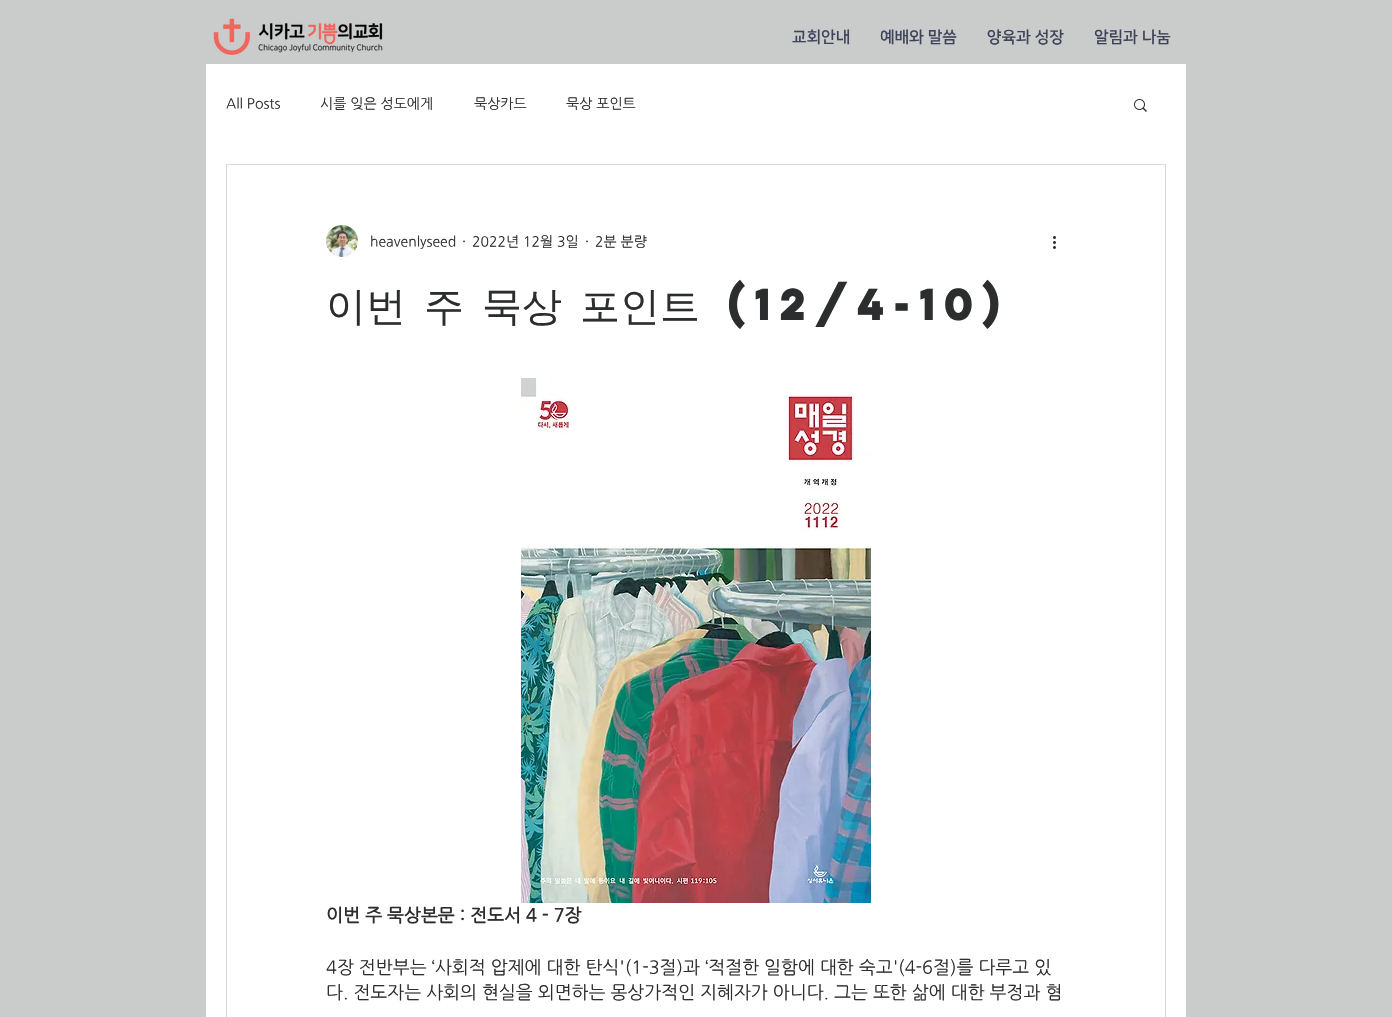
void draw(SkCanvas* c) {
SkPaint p;
p.setAntiAlias(true);
auto F=[&](const char* family, int weight, float size, bool italic = false){SkFontStyle style(weight, SkFontStyle::kNormal_Width,italic ? SkFontStyle::kItalic_Slant : SkFontStyle::kUpright_Slant);SkFont result(fontMgr->matchFamilyStyle(family, style), size);result.setSubpixel(true);return result;};
auto T=[&](const char* s, float x, float y, const SkFont& font){c->drawString(s, x, y, font, p);};
auto L=[&](const char* s, float x, float y, const SkFont& font, const SkPaint& ink, float letter, float word){std::vector<SkGlyphID> glyphs(font.countText(s, strlen(s), SkTextEncoding::kUTF8));std::vector<float> xs(glyphs.size());font.textToGlyphs(s, strlen(s), SkTextEncoding::kUTF8, glyphs);font.getXPos(glyphs, xs, x);float extra = 0;for (size_t i = 0; i < glyphs.size(); i++) {xs[i] += extra;extra += letter + word * (glyphs[i] == font.unicharToGlyph(' '));}c->drawTextBlob(SkTextBlob::MakeFromPosHGlyphs(glyphs, xs, y, font), 0, 0, ink);};
auto R=[&](float x, float y, float w, float h){c->drawRect(SkRect::MakeXYWH(x, y, w, h), p);};
auto I=[&](const char* path, float x, float y, float w, float h){auto image = SkImages::DeferredFromEncodedData(SkData::MakeFromFileName(path));c->drawImageRect(image, SkRect::MakeXYWH(x, y, w, h), SkSamplingOptions());};
c->clear(0xffcacbcb);
I("1.png",213,18,170,37);
auto f1 = F("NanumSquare",700,16);
p.setColor(0xff3f4359);
T("교회안내",792,42,f1);
T("예배와 말씀",880,42,f1);
T("양육과 성장",987,42,f1);
T("알림과 나눔",1094,42,f1);
p.setColor(0xffffffff);
R(206,64,980,953);
auto f2 = F("NanumGothic",400,14);
p.setColor(0xff2c2d2e);
T("All Posts",226,108,f2);
T("시를 잊은 성도에게",320,108,f2);
T("묵상카드",474,108,f2);
T("묵상 포인트",566,108,f2);
I("2.png",1134,99,13,13);
p.setStroke(true);
p.setStrokeWidth(1);
p.setColor(0xffd7d8d8);
c->drawRect(SkRect::MakeXYWH(226.5,164.5,939,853),p);
I("3.png",326,225,32,32);
p.setStroke(false);
p.setColor(0xff2c2d2e);
T("heavenlyseed",370,246,f2);
T("·",462,246,f2);
T("2022년 12월 3일",472,246,f2);
T("·",585,246,f2);
T("2분 분량",595,246,f2);
I("4.png",1053,236,3,13);
auto f3 = F("WenQuanYi Zen Hei",500,40);
L("이번 주 묵상 포인트",326,320,f3,p,0,6);
auto f4 = F("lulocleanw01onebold",700,40);
T("(12/4-10)",728,320,f4);
I("5.png",521,378,350,525);
auto f5 = F("NanumGothic",700,18);
T("이번 주 묵상본문 : 전도서 4 - 7장",326,921,f5);
auto f6 = F("NanumGothic",400,18);
T("4장 전반부는 ‘사회적 압제에 대한 탄식'(1-3절)과 ‘적절한 일함에 대한 숙고'(4-6절)를 다루고 있",326,973,f6);
T("다. 전도자는 사회의 현실을 외면하는 몽상가적인 지혜자가 아니다. 그는 또한 삶에 대한 부정과 혐",326,998,f6);
}
